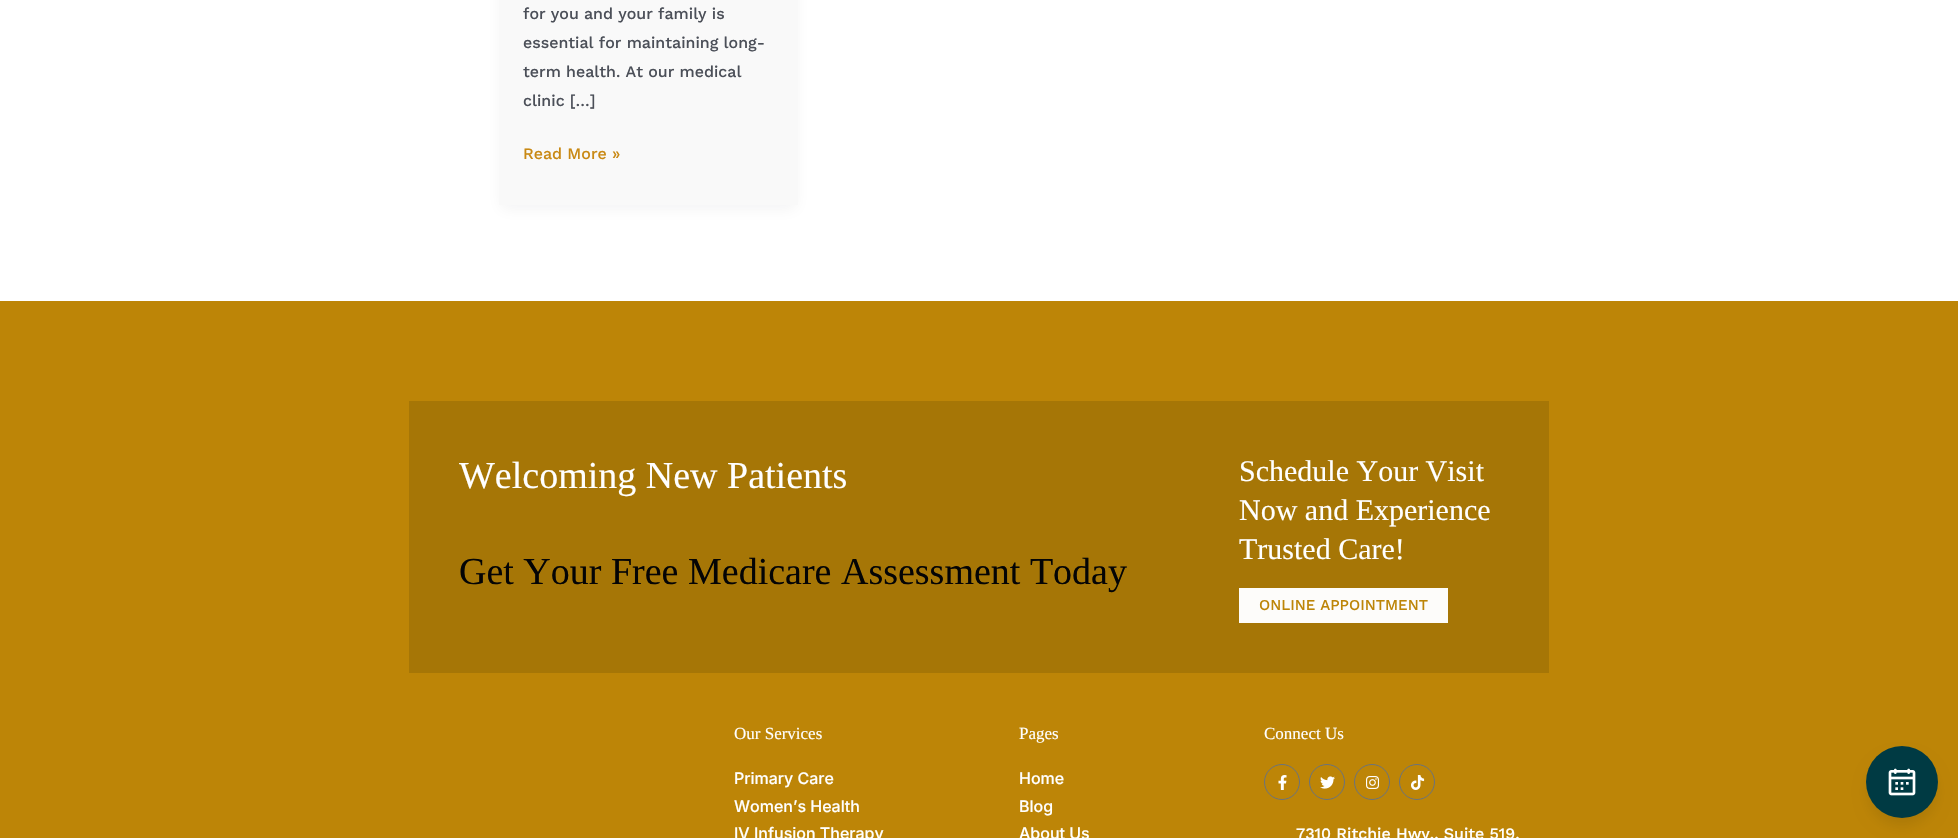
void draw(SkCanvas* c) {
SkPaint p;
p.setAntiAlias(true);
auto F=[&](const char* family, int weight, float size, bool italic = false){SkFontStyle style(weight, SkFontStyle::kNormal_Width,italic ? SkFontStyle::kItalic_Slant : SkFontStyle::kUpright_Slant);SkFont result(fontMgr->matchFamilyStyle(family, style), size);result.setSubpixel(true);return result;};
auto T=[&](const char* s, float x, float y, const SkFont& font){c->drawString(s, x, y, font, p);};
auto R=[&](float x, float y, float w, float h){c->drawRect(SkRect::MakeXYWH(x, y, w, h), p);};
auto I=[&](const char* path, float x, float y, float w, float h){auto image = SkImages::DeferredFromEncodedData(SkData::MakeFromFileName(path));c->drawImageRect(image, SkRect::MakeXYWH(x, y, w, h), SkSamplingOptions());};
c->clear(0xffffffff);
p.setColor(0x0d101828);
p.setMaskFilter(SkMaskFilter::MakeBlur(kNormal_SkBlurStyle, 7.5));
c->drawRect(SkRect::MakeXYWH(501,-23,295,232),p);
p.setMaskFilter(nullptr);
p.setColor(0xfff9f9f9);
R(499,0,299,205);
auto f1 = F("Work Sans",500,16);
p.setColor(0xff4b4f58);
T("for you and your family is",523,19,f1);
T("essential for maintaining long-",523,48,f1);
T("term health. At our medical",523,77,f1);
T("clinic […]",523,106,f1);
p.setColor(0xffc98914);
T("Read More »",523,159,f1);
p.setColor(0xffbd8507);
R(0,301,1958,537);
p.setColor(0xffa67606);
R(409,401,1140,272);
auto f2 = F("Liberation Serif",400,38);
p.setColor(0xffffffff);
T("Welcoming New Patients",459,488,f2);
p.setColor(0xff040405);
T("Get Your Free Medicare Assessment Today",459,584,f2);
auto f3 = F("Liberation Serif",400,30);
p.setColor(0xffffffff);
T("Schedule Your Visit",1239,481,f3);
T("Now and Experience",1239,520,f3);
T("Trusted Care!",1239,559,f3);
p.setColor(0xfffdfcfa);
R(1239,588,209,35);
auto f4 = F("Work Sans",500,15);
p.setColor(0xffbd8507);
T("ONLINE APPOINTMENT",1259,610,f4);
auto f5 = F("Liberation Serif",400,17);
p.setColor(0xffffffff);
T("Our Services",734,739,f5);
auto f6 = F("Inter",500,16);
T("Primary Care",734,784,f6);
T("Women’s Health",734,812,f6);
T("IV Infusion Therapy",734,839,f6);
T("Pages",1019,739,f5);
T("Home",1019,784,f6);
T("Blog",1019,812,f6);
T("About Us",1019,839,f6);
T("Connect Us",1264,739,f5);
p.setStroke(true);
p.setStrokeWidth(1);
p.setColor(0xff69727d);
c->drawCircle(1282,782,17.5,p);
I("1.png",1278,775,9,15);
c->drawCircle(1327,782,17.5,p);
I("2.png",1320,776,15,13);
c->drawCircle(1372,782,17.5,p);
I("3.png",1366,776,14,13);
c->drawCircle(1417,782,17.5,p);
I("4.png",1411,775,14,15);
p.setStroke(false);
p.setColor(0xffffffff);
T("7310 Ritchie Hwy., Suite 519,",1296,839,f1);
p.setColor(0x1a000000);
p.setMaskFilter(SkMaskFilter::MakeBlur(kNormal_SkBlurStyle, 7.5));
c->drawRoundRect(SkRect::MakeXYWH(1869,759,66,66),33,33,p);
p.setMaskFilter(nullptr);
p.setColor(0xff003a43);
c->drawCircle(1902,782,36,p);
I("5.png",1888,768,28,28);
}
